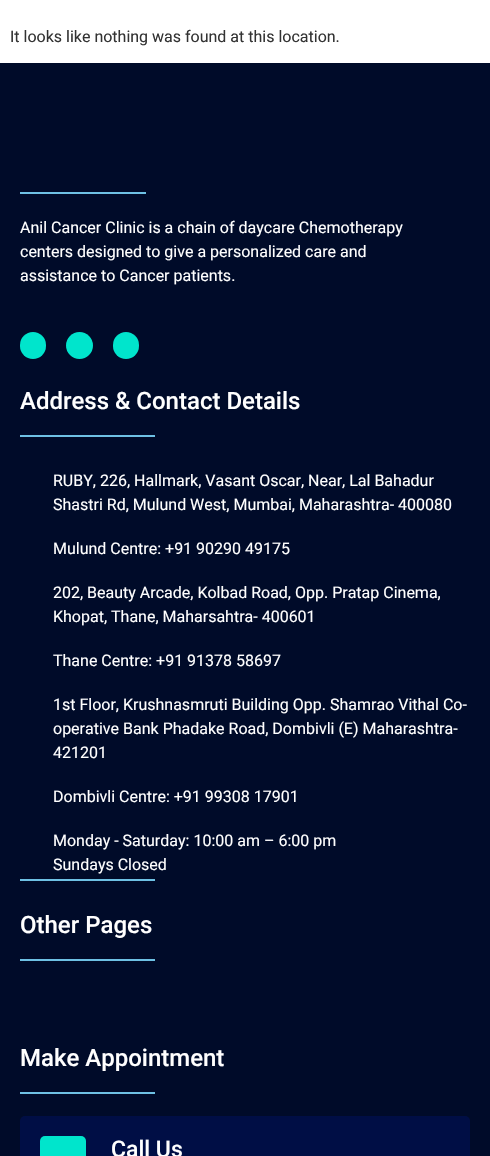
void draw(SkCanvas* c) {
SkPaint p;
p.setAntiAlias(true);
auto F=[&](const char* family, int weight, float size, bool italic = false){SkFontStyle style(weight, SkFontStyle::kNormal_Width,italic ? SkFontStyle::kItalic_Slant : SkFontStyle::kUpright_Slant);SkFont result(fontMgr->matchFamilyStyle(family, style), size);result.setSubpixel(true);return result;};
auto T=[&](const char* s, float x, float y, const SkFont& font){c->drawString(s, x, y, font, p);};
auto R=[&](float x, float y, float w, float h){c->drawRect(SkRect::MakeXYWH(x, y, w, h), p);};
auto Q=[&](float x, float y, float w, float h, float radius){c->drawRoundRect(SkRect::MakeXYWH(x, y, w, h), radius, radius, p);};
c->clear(0xffffffff);
auto f1 = F("Roboto",400,16);
p.setColor(0xff333333);
T("It looks like nothing was found at this location.",10,42,f1);
p.setColor(0xff000b29);
R(0,63,490,1093);
p.setColor(0xff6ec1e4);
R(20,192,126,2);
p.setColor(0xffffffff);
T("Anil Cancer Clinic is a chain of daycare Chemotherapy",20,233,f1);
T("centers designed to give a personalized care and",20,257,f1);
T("assistance to Cancer patients.",20,281,f1);
p.setColor(0xff00e5cc);
Q(20,332,26,27,13);
c->drawCircle(79.5,345.5,13.5,p);
Q(113,332,26,27,13);
auto f2 = F("Roboto",500,24);
p.setColor(0xffffffff);
T("Address & Contact Details",20,409,f2);
p.setColor(0xff6ec1e4);
R(20,435,135,2);
p.setColor(0xffffffff);
T("RUBY, 226, Hallmark, Vasant Oscar, Near, Lal Bahadur",53,486,f1);
T("Shastri Rd, Mulund West, Mumbai, Maharashtra- 400080",53,510,f1);
T("Mulund Centre: +91 90290 49175",53,554,f1);
T("202, Beauty Arcade, Kolbad Road, Opp. Pratap Cinema,",53,598,f1);
T("Khopat, Thane, Maharsahtra- 400601",53,622,f1);
T("Thane Centre: +91 91378 58697",53,666,f1);
T("1st Floor, Krushnasmruti Building Opp. Shamrao Vithal Co-",53,710,f1);
T("operative Bank Phadake Road, Dombivli (E) Maharashtra-",53,734,f1);
T("421201",53,758,f1);
T("Dombivli Centre: +91 99308 17901",53,802,f1);
T("Monday - Saturday: 10:00 am – 6:00 pm",53,846,f1);
T("Sundays Closed",53,870,f1);
p.setColor(0xff6ec1e4);
R(20,879,135,2);
p.setColor(0xffffffff);
T("Other Pages",20,933,f2);
p.setColor(0xff6ec1e4);
R(20,959,135,2);
p.setColor(0xffffffff);
T("Make Appointment",20,1066,f2);
p.setColor(0xff6ec1e4);
R(20,1092,135,2);
p.setColor(0xff000e45);
Q(20,1116,450,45,5);
p.setColor(0xff00e5cc);
Q(40,1136,46,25,5);
auto f3 = F("Roboto",500,23);
p.setColor(0xffffffff);
T("Call Us",111,1157,f3);
}
